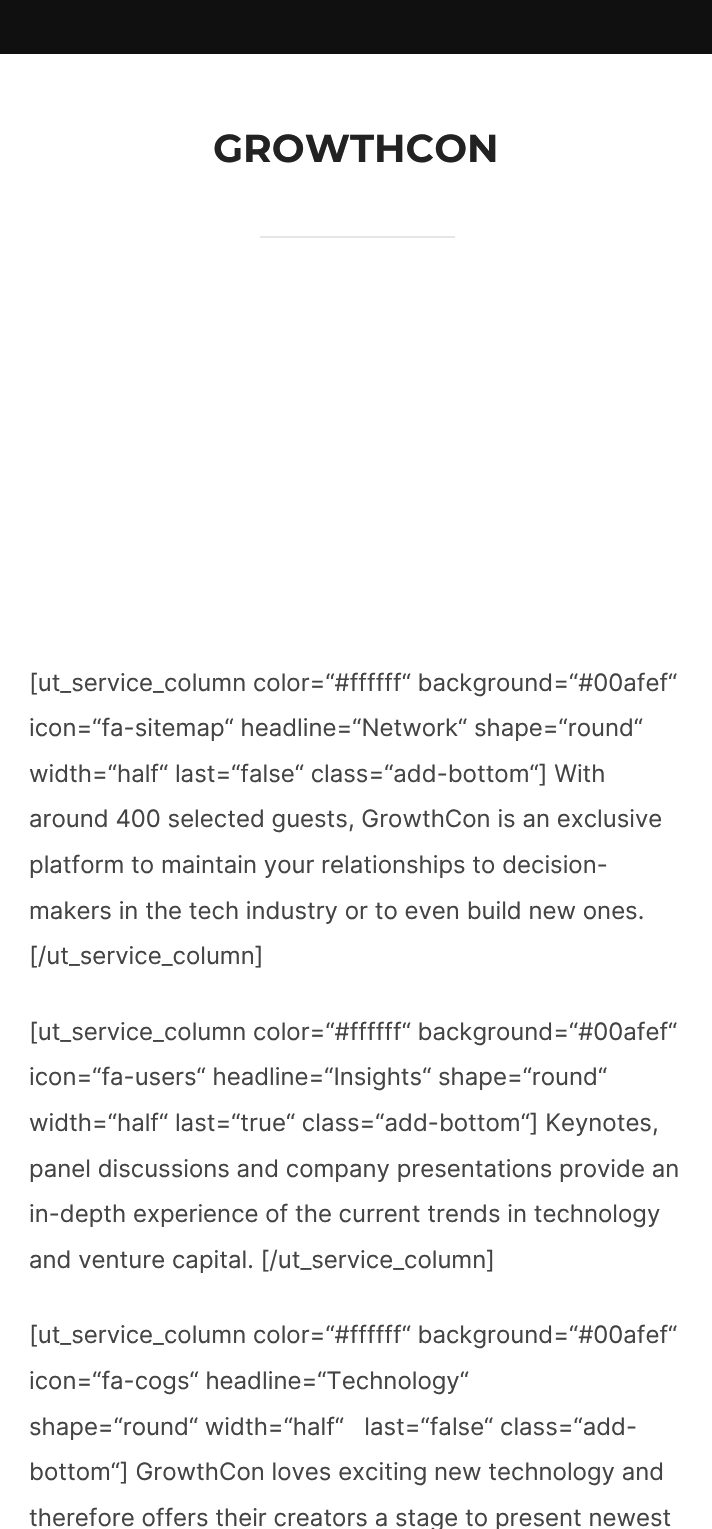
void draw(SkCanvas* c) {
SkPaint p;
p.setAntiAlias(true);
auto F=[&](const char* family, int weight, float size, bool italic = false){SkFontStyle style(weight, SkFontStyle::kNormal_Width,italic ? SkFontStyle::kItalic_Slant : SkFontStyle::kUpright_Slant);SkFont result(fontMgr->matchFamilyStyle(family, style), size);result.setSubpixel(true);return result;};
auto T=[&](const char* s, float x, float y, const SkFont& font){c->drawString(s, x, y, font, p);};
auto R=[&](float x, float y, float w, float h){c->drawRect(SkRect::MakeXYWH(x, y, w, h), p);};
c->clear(0xffffffff);
p.setColor(0xff101010);
R(0,0,712,54);
auto f1 = F("Montserrat",700,39);
p.setColor(0xff222222);
T("GROWTHCON",213,162,f1);
p.setColor(0xffe6e6e6);
R(260,236,195,2);
auto f2 = F("Inter",400,24);
p.setColor(0xff444444);
T("[ut_service_column color=“#ffffff“ background=“#00afef“",29,691,f2);
T("icon=“fa-sitemap“ headline=“Network“ shape=“round“",29,736,f2);
T("width=“half“ last=“false“ class=“add-bottom“] With",29,782,f2);
T("around 400 selected guests, GrowthCon is an exclusive",29,827,f2);
T("platform to maintain your relationships to decision-",29,873,f2);
T("makers in the tech industry or to even build new ones.",29,919,f2);
T("[/ut_service_column]",29,964,f2);
T("[ut_service_column color=“#ffffff“ background=“#00afef“",29,1040,f2);
T("icon=“fa-users“ headline=“Insights“ shape=“round“",29,1085,f2);
T("width=“half“ last=“true“ class=“add-bottom“] Keynotes,",29,1131,f2);
T("panel discussions and company presentations provide an",29,1177,f2);
T("in-depth experience of the current trends in technology",29,1222,f2);
T("and venture capital. [/ut_service_column]",29,1268,f2);
T("[ut_service_column color=“#ffffff“ background=“#00afef“",29,1343,f2);
T("icon=“fa-cogs“ headline=“Technology“",29,1389,f2);
T("shape=“round“ width=“half“   last=“false“ class=“add-",29,1435,f2);
T("bottom“] GrowthCon loves exciting new technology and",29,1480,f2);
T("therefore offers their creators a stage to present newest",29,1526,f2);
}
